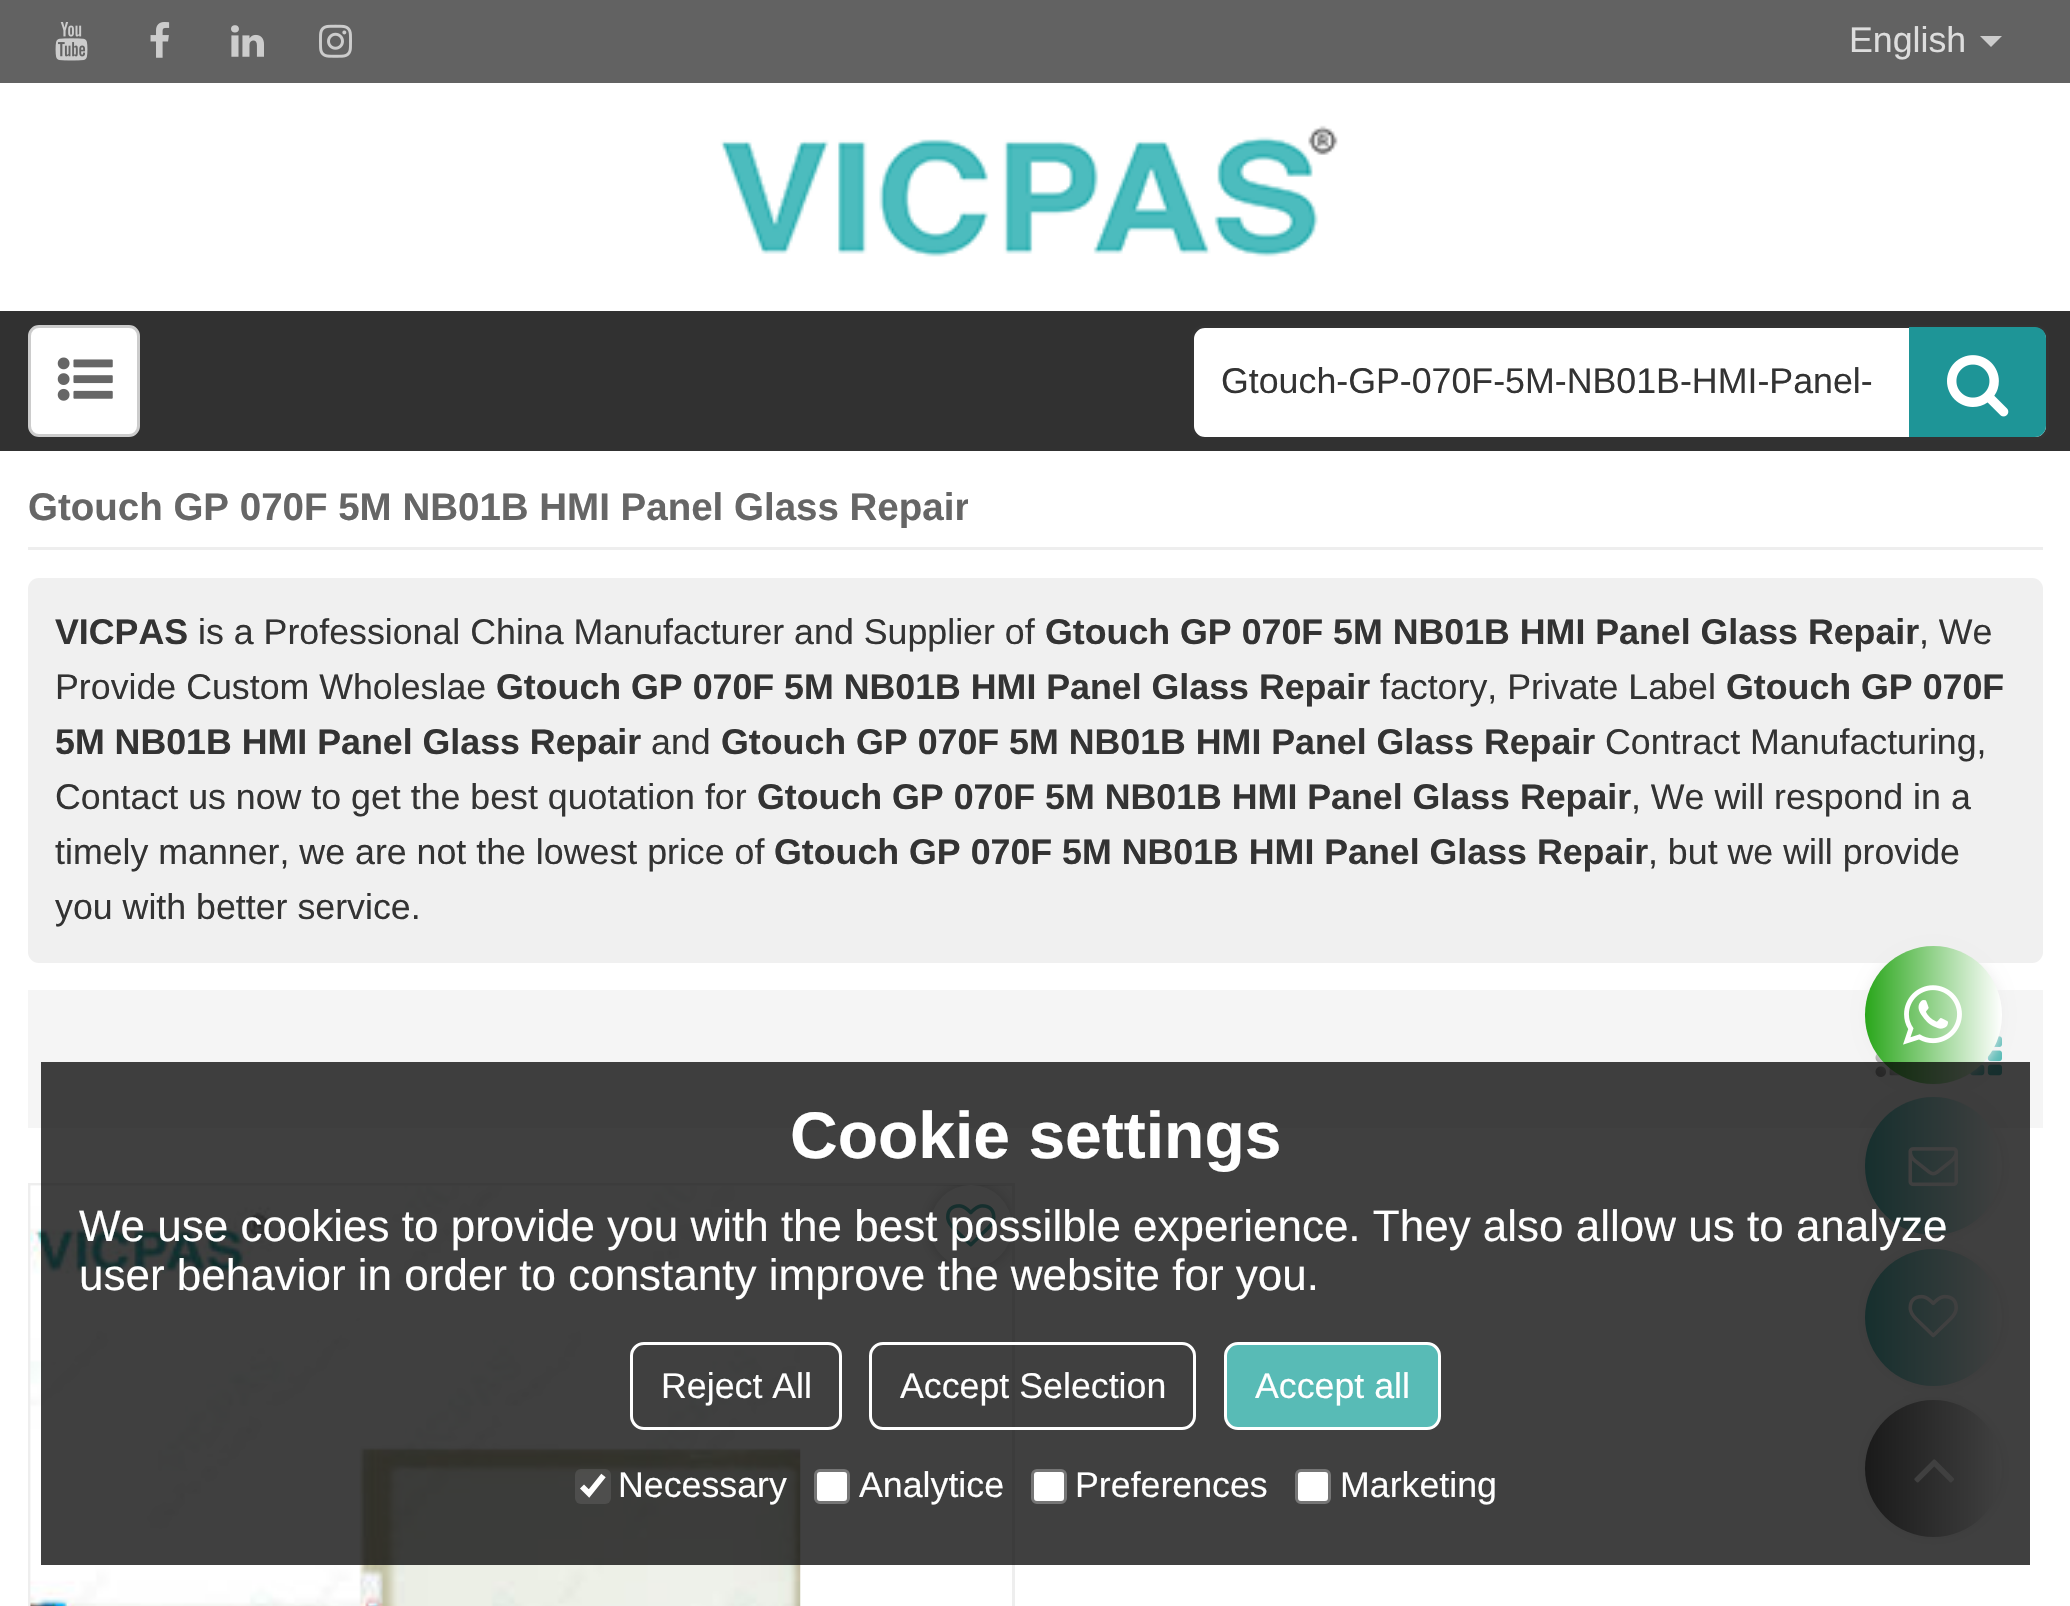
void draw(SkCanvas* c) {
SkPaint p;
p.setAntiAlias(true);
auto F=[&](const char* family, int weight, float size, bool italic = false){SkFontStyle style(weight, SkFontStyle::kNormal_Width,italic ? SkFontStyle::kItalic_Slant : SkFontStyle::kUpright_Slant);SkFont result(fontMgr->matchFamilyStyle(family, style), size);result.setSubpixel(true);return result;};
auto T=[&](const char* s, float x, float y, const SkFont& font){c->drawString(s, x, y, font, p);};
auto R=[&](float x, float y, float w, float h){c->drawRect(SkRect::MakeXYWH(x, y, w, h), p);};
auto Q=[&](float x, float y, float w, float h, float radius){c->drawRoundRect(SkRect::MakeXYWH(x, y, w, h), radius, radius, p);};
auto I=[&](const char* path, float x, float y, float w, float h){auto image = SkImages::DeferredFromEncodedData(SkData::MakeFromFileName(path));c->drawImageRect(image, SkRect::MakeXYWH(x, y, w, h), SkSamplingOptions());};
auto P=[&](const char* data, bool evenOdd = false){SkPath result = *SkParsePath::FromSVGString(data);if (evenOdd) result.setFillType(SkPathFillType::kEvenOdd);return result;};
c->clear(0xffffffff);
p.setColor(0xff626262);
R(0,0,2070,83);
I("1.png",55,22,33,39);
I("2.png",150,22,20,36);
I("3.png",231,25,33,32);
I("4.png",319,24,33,34);
auto f1 = F("Liberation Sans",400,35.75);
p.setColor(0xffdddddd);
T("English",1849,52,f1);
p.setColor(0xffcccccc);
c->drawPath(P("M1980 36h22l-11 11z"),p);
p.setColor(0xff313131);
R(0,311,2070,140);
p.setColor(0xffffffff);
c->drawRoundRect(SkRect::MakeXYWH(29.5,326.5,109,109),9.5,9.5,p);
p.setStroke(true);
p.setStrokeWidth(3);
p.setColor(0xffcccccc);
c->drawRoundRect(SkRect::MakeXYWH(29.5,326.5,109,109),9.5,9.5,p);
I("5.png",57,357,56,44);
I("6.png",720,125,618,132);
p.setStroke(false);
p.setColor(0xffffffff);
c->drawRoundRect(SkRect::MakeXYWH(1192.5,326.5,855,112),12.5,12.5,p);
p.setStroke(true);
p.setColor(0xff333333);
c->drawRoundRect(SkRect::MakeXYWH(1192.5,326.5,855,112),12.5,12.5,p);
p.setStroke(false);
T("Gtouch-GP-070F-5M-NB01B-HMI-Panel-",1221,393,f1);
p.setColor(0xff1e9597);
c->drawPath(P("M1909 327h126c6 0 11 5 11 11v88c0 6-5 11-11 11h-126z"),p);
I("7.png",1947,355,62,62);
p.setColor(0xffeeeeee);
R(28,547,2015,3);
c->save();
c->clipRect(SkRect::MakeXYWH(28,479,940,55));
auto f2 = F("Liberation Sans",700,38.5);
p.setColor(0xff666666);
T("Gtouch GP 070F 5M NB01B HMI Panel Glass Repair",28,520,f2);
c->restore();
p.setColor(0xfff0f0f0);
Q(28,578,2015,385,11);
auto f3 = F("Liberation Sans",700,35.75);
p.setColor(0xff333333);
T("VICPAS",55,644,f3);
T("is a Professional China Manufacturer and Supplier of",198,644,f1);
T("Gtouch GP 070F 5M NB01B HMI Panel Glass Repair",1045,644,f3);
T(", We",1919,644,f1);
T("Provide Custom Wholeslae",55,699,f1);
T("Gtouch GP 070F 5M NB01B HMI Panel Glass Repair",496,699,f3);
T("factory, Private Label",1380,699,f1);
T("Gtouch GP 070F",1726,699,f3);
T("5M NB01B HMI Panel Glass Repair",55,754,f3);
T("and",651,754,f1);
T("Gtouch GP 070F 5M NB01B HMI Panel Glass Repair",721,754,f3);
T("Contract Manufacturing,",1605,754,f1);
T("Contact us now to get the best quotation for",55,809,f1);
T("Gtouch GP 070F 5M NB01B HMI Panel Glass Repair",757,809,f3);
T(", We will respond in a",1631,809,f1);
T("timely manner, we are not the lowest price of",55,864,f1);
T("Gtouch GP 070F 5M NB01B HMI Panel Glass Repair",774,864,f3);
T(", but we will provide",1648,864,f1);
T("you with better service.",55,919,f1);
p.setColor(0xfff5f5f5);
R(28,990,2015,138);
I("8.png",1875,1054,27,23);
I("9.png",1970,1036,32,40);
p.setStroke(true);
p.setColor(0xffeeeeee);
c->drawRect(SkRect::MakeXYWH(29.5,1184.5,984,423),p);
I("10.png",30,1185,771,421);
c->save();
c->clipRect(SkRect::MakeXYWH(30,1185,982,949));
p.setStroke(false);
p.setColor(0x33000000);
p.setMaskFilter(SkMaskFilter::MakeBlur(kNormal_SkBlurStyle, 7));
c->drawRoundRect(SkRect::MakeXYWH(930,1185,82,83),41,41,p);
p.setMaskFilter(nullptr);
c->restore();
p.setColor(0xffffffff);
Q(930,1185,82,83,41);
I("11.png",946,1204,50,43);
p.setColor(0xffeeeeee);
p.setMaskFilter(SkMaskFilter::MakeBlur(kNormal_SkBlurStyle, 7));
c->drawRoundRect(SkRect::MakeXYWH(1865,946,137,138),68.5,68.5,p);
p.setMaskFilter(nullptr);
{
const SkColor colors[] = {0xff29a61a,0xffffffff};
const float stops[] = {0,1};
const SkPoint ends[] = {{1865,1015}, {2002,1015}};
p.setShader(SkGradientShader::MakeLinear(ends, colors, stops, 2, SkTileMode::kClamp));
p.setAlpha(255);
}
Q(1865,946,137,138,68.5);
I("12.png",1903,985,59,60);
p.setShader(nullptr);
p.setColor(0xffeeeeee);
p.setMaskFilter(SkMaskFilter::MakeBlur(kNormal_SkBlurStyle, 7));
c->drawRoundRect(SkRect::MakeXYWH(1865,1097,137,138),68.5,68.5,p);
p.setMaskFilter(nullptr);
{
const SkColor colors[] = {0xff58bbb6,0xffffffff};
const float stops[] = {0,1};
const SkPoint ends[] = {{1865,1166}, {2002,1166}};
p.setShader(SkGradientShader::MakeLinear(ends, colors, stops, 2, SkTileMode::kClamp));
p.setAlpha(255);
}
Q(1865,1097,137,138,68.5);
I("13.png",1908,1147,50,40);
p.setShader(nullptr);
p.setColor(0xffeeeeee);
p.setMaskFilter(SkMaskFilter::MakeBlur(kNormal_SkBlurStyle, 7));
c->drawRoundRect(SkRect::MakeXYWH(1865,1249,137,137),68.5,68.5,p);
p.setMaskFilter(nullptr);
{
const SkColor colors[] = {0xff58bbb6,0xffffffff};
const float stops[] = {0,1};
const SkPoint ends[] = {{1865,1317}, {2002,1317}};
p.setShader(SkGradientShader::MakeLinear(ends, colors, stops, 2, SkTileMode::kClamp));
p.setAlpha(255);
}
c->drawCircle(1933.5,1317.5,68.5,p);
I("14.png",1908,1294,50,44);
p.setShader(nullptr);
p.setColor(0xffeeeeee);
p.setMaskFilter(SkMaskFilter::MakeBlur(kNormal_SkBlurStyle, 7));
c->drawRoundRect(SkRect::MakeXYWH(1865,1400,137,137),68.5,68.5,p);
p.setMaskFilter(nullptr);
{
const SkColor colors[] = {0xff666666,0xffffffff};
const float stops[] = {0,1};
const SkPoint ends[] = {{1865,1469}, {2002,1469}};
p.setShader(SkGradientShader::MakeLinear(ends, colors, stops, 2, SkTileMode::kClamp));
p.setAlpha(255);
}
c->drawCircle(1933.5,1468.5,68.5,p);
I("15.png",1914,1459,40,24);
p.setShader(nullptr);
p.setColor(0xbf000000);
R(41,1062,1989,503);
auto f4 = F("Liberation Sans",700,66);
p.setColor(0xffffffff);
T("Cookie settings",790,1158,f4);
auto f5 = F("Liberation Sans",400,44);
T("We use cookies to provide you with the best possilble experience. They also allow us to analyze",79,1241,f5);
T("user behavior in order to constanty improve the website for you.",79,1290,f5);
p.setStroke(true);
c->drawRoundRect(SkRect::MakeXYWH(631.5,1343.5,209,85),12.5,12.5,p);
p.setStroke(false);
T("Reject All",661,1398,f1);
p.setStroke(true);
c->drawRoundRect(SkRect::MakeXYWH(870.5,1343.5,324,85),12.5,12.5,p);
p.setStroke(false);
T("Accept Selection",900,1398,f1);
p.setColor(0xff58bbb6);
c->drawRoundRect(SkRect::MakeXYWH(1225.5,1343.5,214,85),12.5,12.5,p);
p.setStroke(true);
p.setColor(0xffffffff);
c->drawRoundRect(SkRect::MakeXYWH(1225.5,1343.5,214,85),12.5,12.5,p);
p.setStroke(false);
T("Accept all",1255,1398,f1);
p.setColor(0x4d767676);
Q(575,1469,36,35,6);
p.setStroke(true);
p.setStrokeWidth(5.7);
p.setColor(0xffffffff);
c->drawPath(P("M582 1486.5l7 7l14.5-18"),p);
p.setStroke(false);
T("Necessary",618,1497,f1);
c->drawRoundRect(SkRect::MakeXYWH(815.5,1470.5,33,32),4.5,4.5,p);
p.setStroke(true);
p.setStrokeWidth(3);
p.setColor(0xff767676);
c->drawRoundRect(SkRect::MakeXYWH(815.5,1470.5,33,32),4.5,4.5,p);
p.setStroke(false);
p.setColor(0xffffffff);
T("Analytice",859,1497,f1);
c->drawRoundRect(SkRect::MakeXYWH(1032.5,1470.5,33,32),4.5,4.5,p);
p.setStroke(true);
p.setColor(0xff767676);
c->drawRoundRect(SkRect::MakeXYWH(1032.5,1470.5,33,32),4.5,4.5,p);
p.setStroke(false);
p.setColor(0xffffffff);
T("Preferences",1075,1497,f1);
c->drawRoundRect(SkRect::MakeXYWH(1296.5,1470.5,33,32),4.5,4.5,p);
p.setStroke(true);
p.setColor(0xff767676);
c->drawRoundRect(SkRect::MakeXYWH(1296.5,1470.5,33,32),4.5,4.5,p);
p.setStroke(false);
p.setColor(0xffffffff);
T("Marketing",1340,1497,f1);
}
